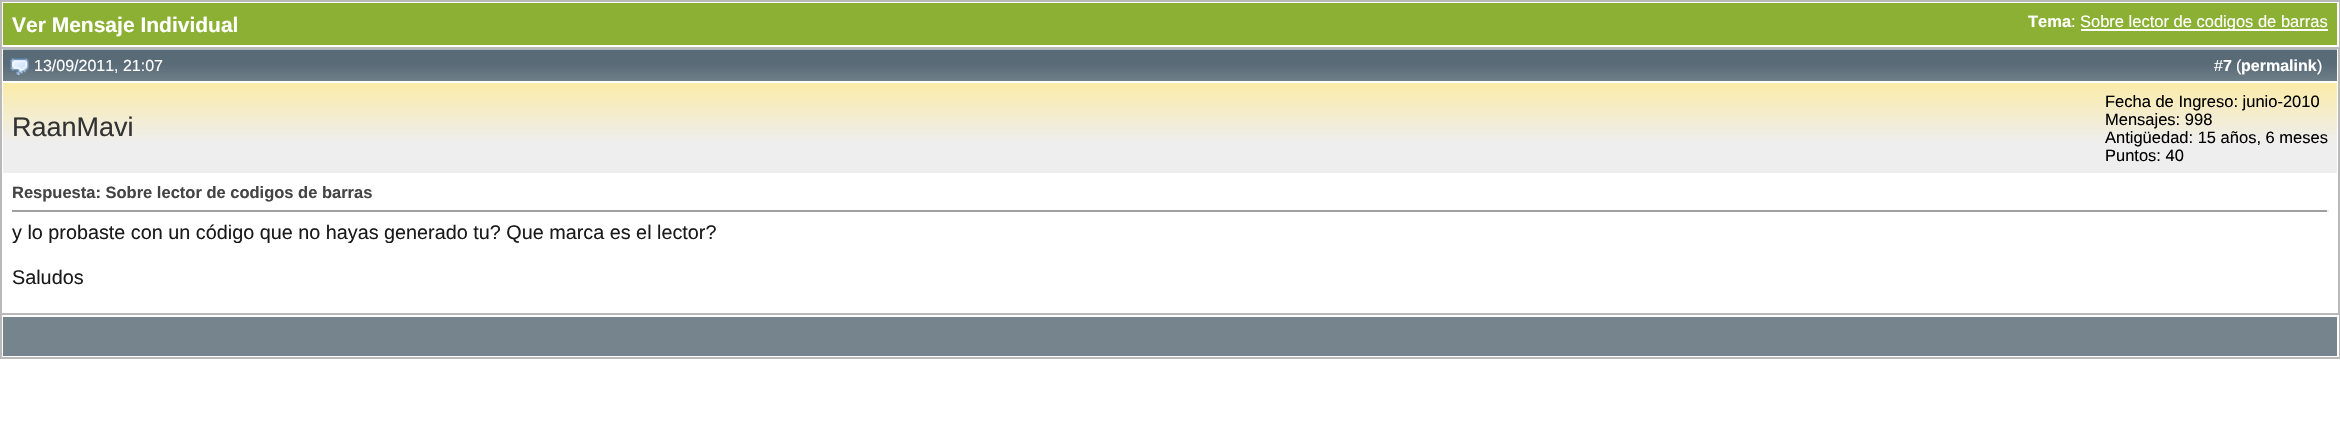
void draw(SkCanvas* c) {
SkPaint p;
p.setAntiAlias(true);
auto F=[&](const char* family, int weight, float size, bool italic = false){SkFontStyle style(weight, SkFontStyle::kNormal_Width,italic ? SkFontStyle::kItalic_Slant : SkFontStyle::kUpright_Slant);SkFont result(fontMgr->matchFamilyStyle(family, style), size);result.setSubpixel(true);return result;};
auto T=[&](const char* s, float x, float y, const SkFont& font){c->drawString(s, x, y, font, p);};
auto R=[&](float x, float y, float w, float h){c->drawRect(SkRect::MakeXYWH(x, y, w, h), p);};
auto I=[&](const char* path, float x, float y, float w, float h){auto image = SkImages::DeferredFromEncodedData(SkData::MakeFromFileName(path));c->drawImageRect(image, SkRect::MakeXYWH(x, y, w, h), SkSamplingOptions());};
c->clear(0xffffffff);
p.setColor(0xffb9b9b9);
R(0,0,2340,2);
R(2339,0,1,47);
R(0,0,2,47);
p.setColor(0xff8bb033);
R(3,3,2334,42);
auto f1 = F("Liberation Sans",700,21);
p.setColor(0xffffffff);
T("Ver Mensaje Individual",12,32,f1);
auto f2 = F("Liberation Sans",700,16.5);
T("Tema",2028,27,f2);
auto f3 = F("Liberation Sans",400,16.5);
T(":",2071,27,f3);
R(2081,29,247,2);
T("Sobre lector de codigos de barras",2080,27,f3);
p.setStroke(true);
p.setStrokeWidth(2);
p.setColor(0xffb9b9b9);
c->drawRect(SkRect::MakeXYWH(1,48,2338,266),p);
I("1.png",3,49,2334,32);
I("2.png",10,58,19,17);
auto f4 = F("Liberation Sans",400,16);
p.setStroke(false);
p.setColor(0xffffffff);
T("13/09/2011, 21:07",34,71,f4);
T("#",2214,71,f4);
auto f5 = F("Liberation Sans",700,16);
T("7",2223,71,f5);
T("(",2236,71,f4);
T("permalink",2241,71,f5);
T(")",2317,71,f4);
{
const SkColor colors[] = {0xfffbeba8,0xffeeeeee};
const float stops[] = {0,1};
const SkPoint ends[] = {{3,83}, {3,143}};
p.setShader(SkGradientShader::MakeLinear(ends, colors, stops, 2, SkTileMode::kClamp));
p.setAlpha(255);
}
R(3,83,2334,90);
auto f6 = F("Liberation Sans",400,27);
p.setShader(nullptr);
p.setColor(0xff333333);
T("RaanMavi",12,136,f6);
p.setColor(0xff000000);
T("Fecha de Ingreso: junio-2010",2105,107,f3);
T("Mensajes: 998",2105,125,f3);
T("Antigüedad: 15 años, 6 meses",2105,143,f3);
T("Puntos: 40",2105,161,f3);
p.setColor(0xff444444);
T("Respuesta: Sobre lector de codigos de barras",12,198,f2);
p.setColor(0xff9f9f9f);
R(12,210,2316,2);
p.setColor(0xffeeeeee);
R(2327,210,2,2);
auto f7 = F("Liberation Sans",400,19.8);
p.setColor(0xff1a1a1a);
T("y lo probaste con un código que no hayas generado tu? Que marca es el lector?",12,239,f7);
T("Saludos",12,284,f7);
p.setColor(0xffb9b9b9);
R(2339,315,1,44);
R(0,357,2340,2);
R(0,315,2,44);
p.setColor(0xff76848e);
R(3,317,2334,39);
}
